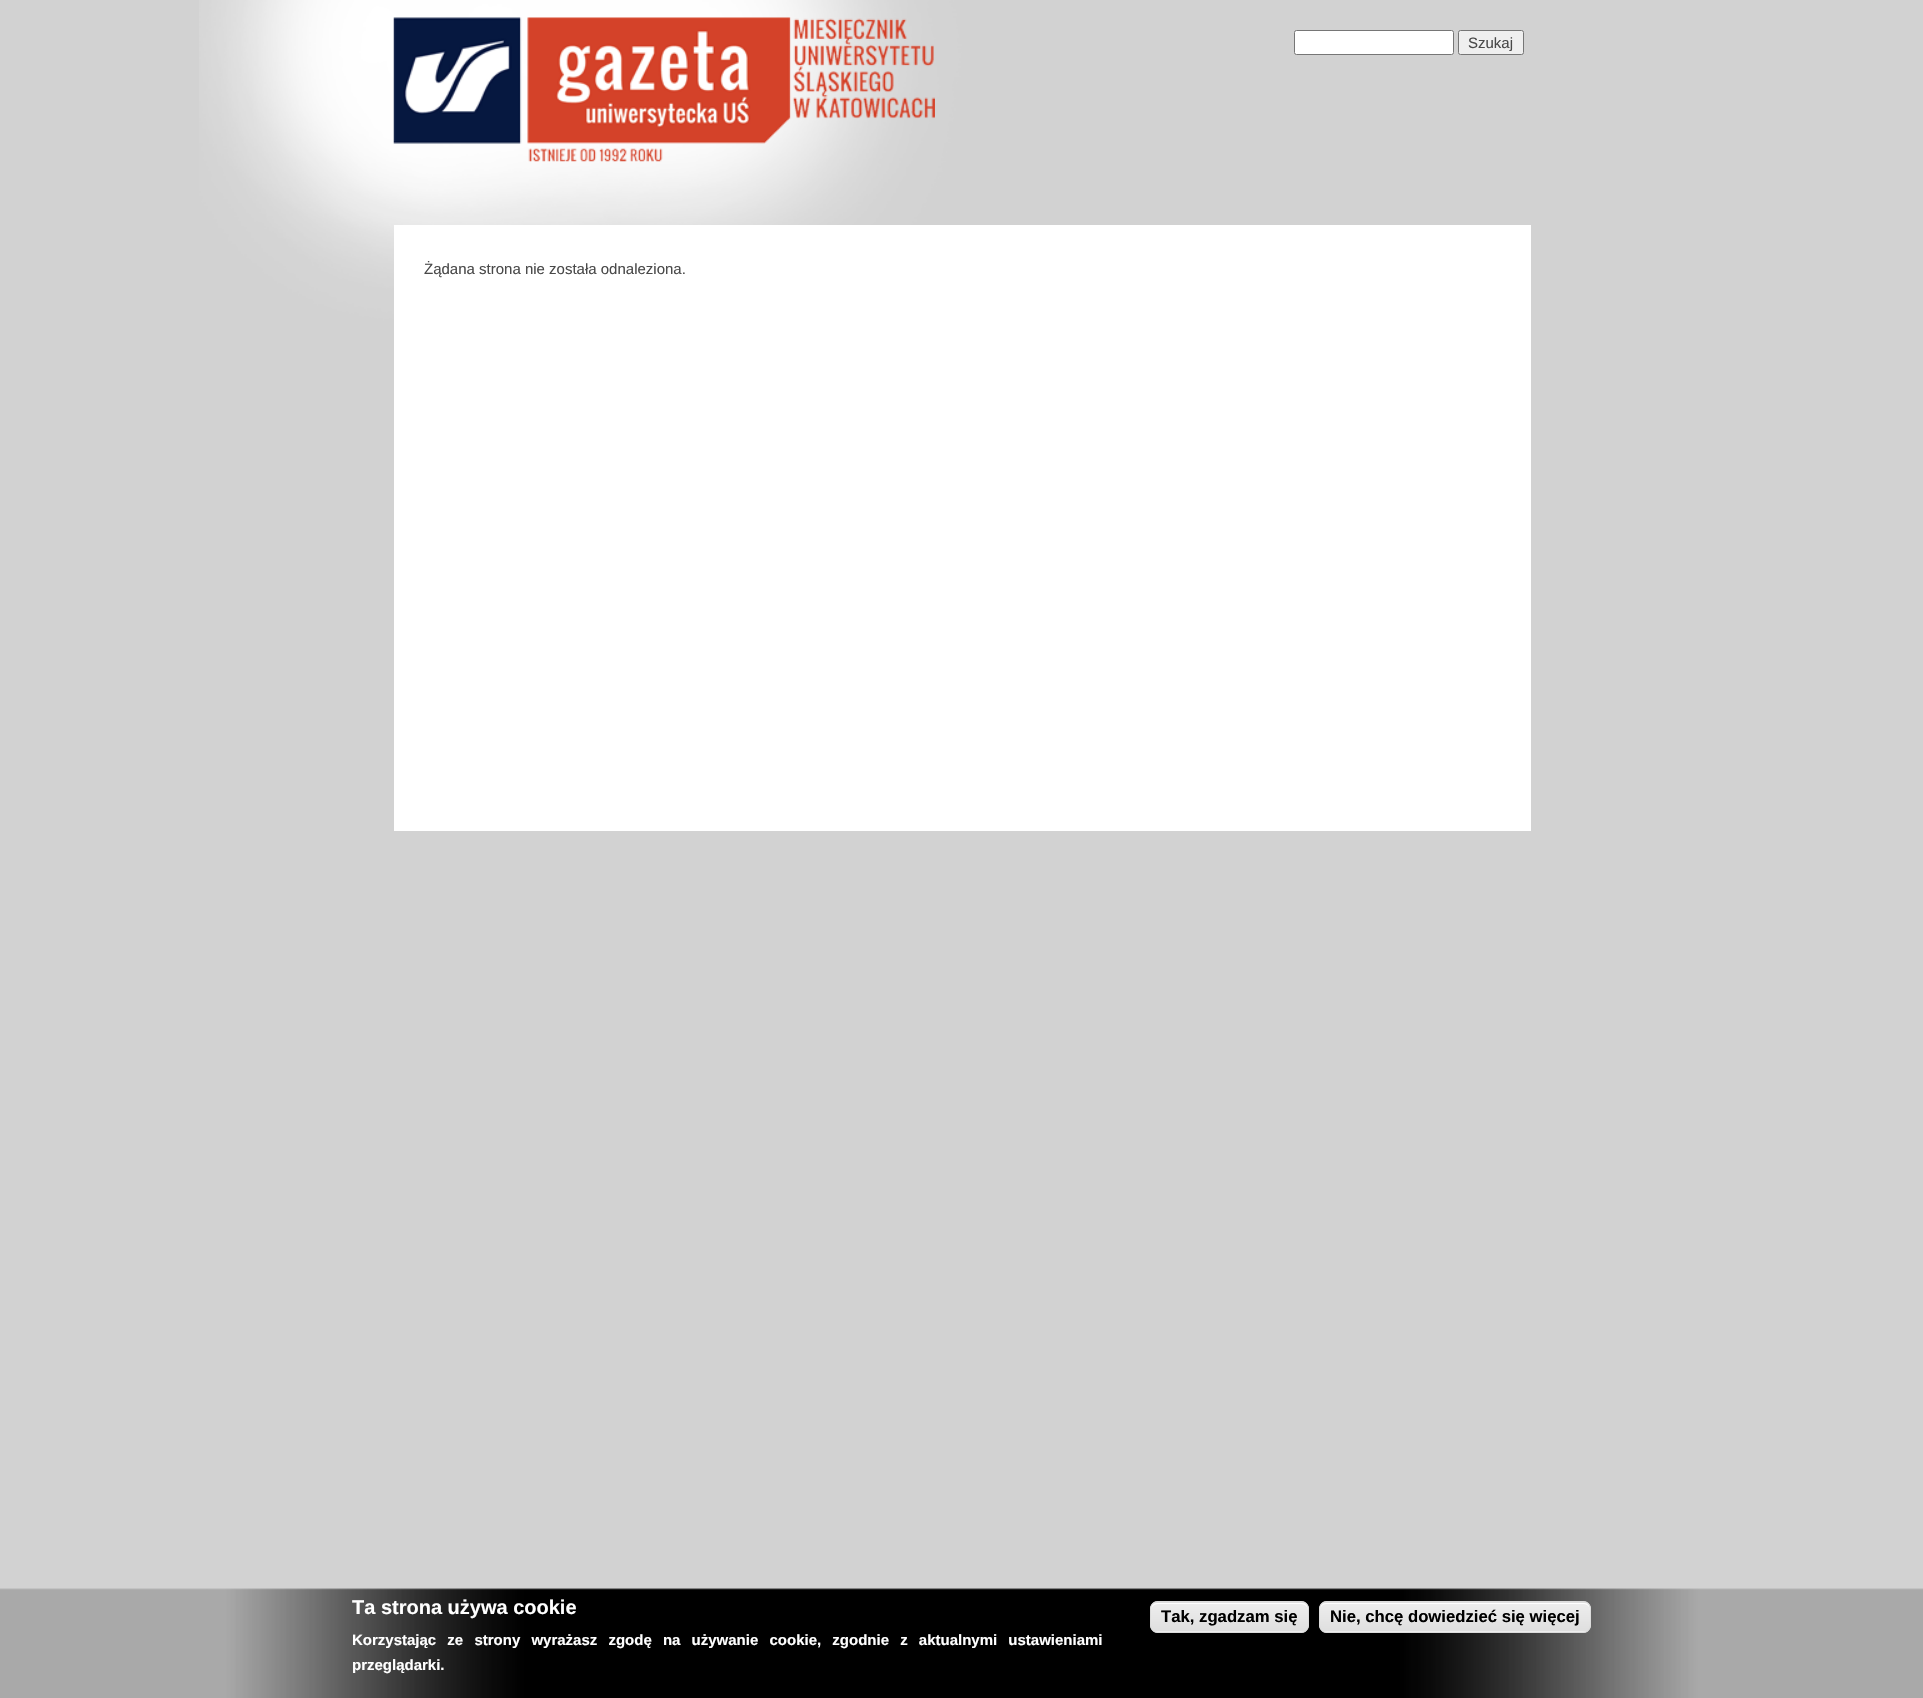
void draw(SkCanvas* c) {
SkPaint p;
p.setAntiAlias(true);
auto F=[&](const char* family, int weight, float size, bool italic = false){SkFontStyle style(weight, SkFontStyle::kNormal_Width,italic ? SkFontStyle::kItalic_Slant : SkFontStyle::kUpright_Slant);SkFont result(fontMgr->matchFamilyStyle(family, style), size);result.setSubpixel(true);return result;};
auto T=[&](const char* s, float x, float y, const SkFont& font){c->drawString(s, x, y, font, p);};
auto L=[&](const char* s, float x, float y, const SkFont& font, const SkPaint& ink, float letter, float word){std::vector<SkGlyphID> glyphs(font.countText(s, strlen(s), SkTextEncoding::kUTF8));std::vector<float> xs(glyphs.size());font.textToGlyphs(s, strlen(s), SkTextEncoding::kUTF8, glyphs);font.getXPos(glyphs, xs, x);float extra = 0;for (size_t i = 0; i < glyphs.size(); i++) {xs[i] += extra;extra += letter + word * (glyphs[i] == font.unicharToGlyph(' '));}c->drawTextBlob(SkTextBlob::MakeFromPosHGlyphs(glyphs, xs, y, font), 0, 0, ink);};
auto R=[&](float x, float y, float w, float h){c->drawRect(SkRect::MakeXYWH(x, y, w, h), p);};
auto I=[&](const char* path, float x, float y, float w, float h){auto image = SkImages::DeferredFromEncodedData(SkData::MakeFromFileName(path));c->drawImageRect(image, SkRect::MakeXYWH(x, y, w, h), SkSamplingOptions());};
auto P=[&](const char* data, bool evenOdd = false){SkPath result = *SkParsePath::FromSVGString(data);if (evenOdd) result.setFillType(SkPathFillType::kEvenOdd);return result;};
c->clear(0xffd2d2d2);
I("1.png",199,0,815,365);
I("2.png",393,17,542,145);
p.setColor(0xffffffff);
c->drawRoundRect(SkRect::MakeXYWH(1294.5,30.5,159,24),2,2,p);
p.setStroke(true);
p.setStrokeWidth(1);
p.setColor(0xff767676);
c->drawRoundRect(SkRect::MakeXYWH(1294.5,30.5,159,24),2,2,p);
p.setStroke(false);
p.setColor(0xffefefef);
c->drawRoundRect(SkRect::MakeXYWH(1458.5,30.5,65,24),2,2,p);
p.setStroke(true);
p.setColor(0xff767676);
c->drawRoundRect(SkRect::MakeXYWH(1458.5,30.5,65,24),2,2,p);
auto f1 = F("Liberation Sans",400,15);
p.setStroke(false);
p.setColor(0xff494949);
T("Szukaj",1468,48,f1);
p.setColor(0xffffffff);
R(394,225,1137,606);
p.setColor(0xff494949);
T("Żądana strona nie została odnaleziona.",424,274,f1);
I("3.png",0,1588,1923,110);
auto f2 = F("Liberation Sans",700,20);
p.setColor(0xffffffff);
T("Ta strona używa cookie",352,1614,f2);
auto f3 = F("Liberation Sans",700,15);
L("Korzystając ze strony wyrażasz zgodę na używanie cookie, zgodnie z aktualnymi ustawieniami",352,1645,f3,p,0,7);
T("przeglądarki.",352,1670,f3);
c->save();
c->clipPath(P("M1158 1601h143c4.5 0 8 3.5 8 8v16c0 4.5-3.5 8-8 8h-143c-4.5 0-8-3.5-8-8v-16c0-4.5 3.5-8 8-8z"),true);
{
const SkColor colors[] = {0xffededed,0xffdfdfdf};
const float stops[] = {.05,1};
const SkPoint ends[] = {{1151,1574}, {1151,1603}};
p.setShader(SkGradientShader::MakeLinear(ends, colors, stops, 2, SkTileMode::kClamp));
p.setAlpha(255);
}
R(1150,1601,159,2);
{
const SkColor colors[] = {0xffededed,0xffdfdfdf};
const float stops[] = {.05,1};
const SkPoint ends[] = {{1151,1603}, {1151,1631}};
p.setShader(SkGradientShader::MakeLinear(ends, colors, stops, 2, SkTileMode::kClamp));
p.setAlpha(255);
}
R(1150,1603,159,28);
{
const SkColor colors[] = {0xffededed,0xffdfdfdf};
const float stops[] = {.05,1};
const SkPoint ends[] = {{1151,1631}, {1151,1660}};
p.setShader(SkGradientShader::MakeLinear(ends, colors, stops, 2, SkTileMode::kClamp));
p.setAlpha(255);
}
R(1150,1631,159,2);
c->restore();
p.setShader(nullptr);
p.setColor(0xffffffff);
c->drawPath(P("M1158 1604h143c4 0 7 3 7 6v-1c0-3-3-6-6-6h-145c-3 0-6 3-6 6v1c0-3 3-6 7-6z"),p);
p.setStroke(true);
p.setColor(0xffdcdcdc);
c->drawRoundRect(SkRect::MakeXYWH(1150.5,1601.5,158,31),7.5,7.5,p);
auto f4 = F("Liberation Sans",700,16.7);
p.setStroke(false);
p.setColor(0xff000000);
T("Tak, zgadzam się",1161,1622,f4);
c->save();
c->clipPath(P("M1327 1601h256c4.5 0 8 3.5 8 8v16c0 4.5-3.5 8-8 8h-256c-4.5 0-8-3.5-8-8v-16c0-4.5 3.5-8 8-8z"),true);
{
const SkColor colors[] = {0xffededed,0xffdfdfdf};
const float stops[] = {.05,1};
const SkPoint ends[] = {{1320,1574}, {1320,1603}};
p.setShader(SkGradientShader::MakeLinear(ends, colors, stops, 2, SkTileMode::kClamp));
p.setAlpha(255);
}
R(1319,1601,272,2);
{
const SkColor colors[] = {0xffededed,0xffdfdfdf};
const float stops[] = {.05,1};
const SkPoint ends[] = {{1320,1603}, {1320,1631}};
p.setShader(SkGradientShader::MakeLinear(ends, colors, stops, 2, SkTileMode::kClamp));
p.setAlpha(255);
}
R(1319,1603,272,28);
{
const SkColor colors[] = {0xffededed,0xffdfdfdf};
const float stops[] = {.05,1};
const SkPoint ends[] = {{1320,1631}, {1320,1660}};
p.setShader(SkGradientShader::MakeLinear(ends, colors, stops, 2, SkTileMode::kClamp));
p.setAlpha(255);
}
R(1319,1631,272,2);
c->restore();
p.setShader(nullptr);
p.setColor(0xffffffff);
c->drawPath(P("M1326 1604h258c3 0 6 3 6 6v-1c0-3-3-6-6-6h-258c-3 0-6 3-6 6v1c0-3 3-6 6-6z"),p);
p.setStroke(true);
p.setColor(0xffdcdcdc);
c->drawRoundRect(SkRect::MakeXYWH(1319.5,1601.5,271,31),7.5,7.5,p);
p.setStroke(false);
p.setColor(0xff000000);
T("Nie, chcę dowiedzieć się więcej",1330,1622,f4);
}
